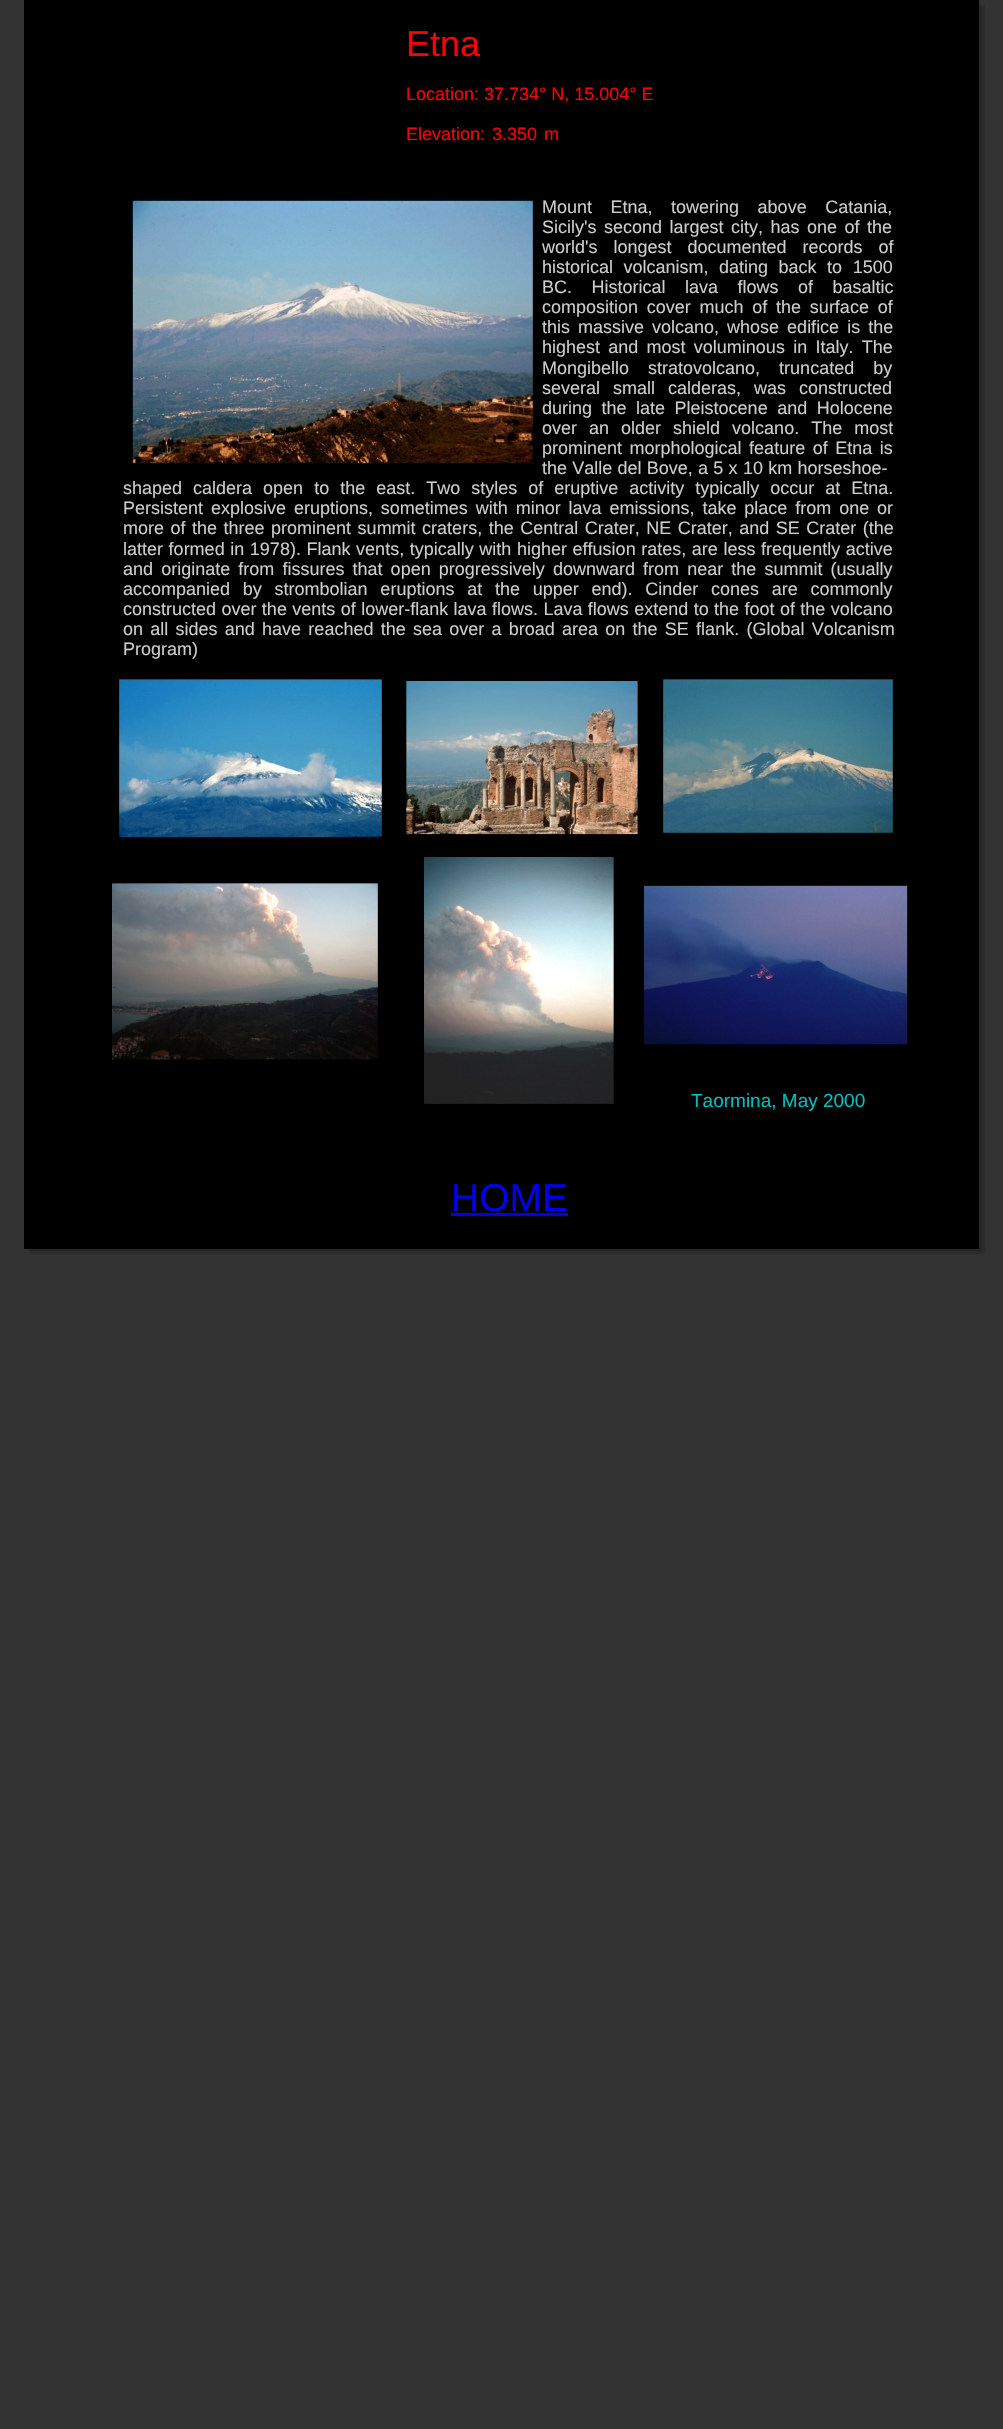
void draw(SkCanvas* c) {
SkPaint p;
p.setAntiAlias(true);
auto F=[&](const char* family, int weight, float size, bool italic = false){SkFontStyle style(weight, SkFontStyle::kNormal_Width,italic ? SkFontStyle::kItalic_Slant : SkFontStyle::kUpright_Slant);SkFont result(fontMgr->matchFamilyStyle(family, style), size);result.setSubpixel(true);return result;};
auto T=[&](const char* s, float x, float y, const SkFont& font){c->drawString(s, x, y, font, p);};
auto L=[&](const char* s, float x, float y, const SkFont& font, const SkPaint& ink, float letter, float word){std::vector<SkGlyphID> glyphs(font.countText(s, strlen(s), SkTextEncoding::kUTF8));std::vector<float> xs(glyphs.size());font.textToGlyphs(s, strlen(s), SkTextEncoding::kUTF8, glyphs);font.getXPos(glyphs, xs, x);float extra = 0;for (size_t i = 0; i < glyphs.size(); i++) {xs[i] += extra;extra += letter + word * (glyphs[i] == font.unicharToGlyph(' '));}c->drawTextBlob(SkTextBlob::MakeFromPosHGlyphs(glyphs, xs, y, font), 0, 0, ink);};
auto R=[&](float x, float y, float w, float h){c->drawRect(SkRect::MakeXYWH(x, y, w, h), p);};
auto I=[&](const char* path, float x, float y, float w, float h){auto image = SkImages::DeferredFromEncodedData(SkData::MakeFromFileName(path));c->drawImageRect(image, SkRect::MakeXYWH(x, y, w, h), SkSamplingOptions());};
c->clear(0xff333333);
I("1.png",24,0,961,1255);
auto f1 = F("Liberation Sans",400,36);
p.setColor(0xffff0000);
T("Etna",406,56,f1);
auto f2 = F("Liberation Sans",400,18);
T("Location: 37.734° N, 15.004° E",406,100,f2);
L("Elevation: 3.350 m",406,140,f2,p,0,2);
p.setColor(0xffcccccc);
L("Mount Etna, towering above Catania,",542,213,f2,p,0,13.5);
L("Sicily's second largest city, has one of the",542,233,f2,p,0,2.5);
L("world's longest documented records of",542,253,f2,p,0,11);
L("historical volcanism, dating back to 1500",542,273,f2,p,0,5.5);
L("BC. Historical lava flows of basaltic",542,293,f2,p,0,14.5);
L("composition cover much of the surface of",542,313,f2,p,0,3.75);
L("this massive volcano, whose edifice is the",542,333,f2,p,0,3);
L("highest and most voluminous in Italy. The",542,353,f2,p,0,3.25);
L("Mongibello stratovolcano, truncated by",542,374,f2,p,0,14);
L("several small calderas, was constructed",542,394,f2,p,0,8);
L("during the late Pleistocene and Holocene",542,414,f2,p,0,4.5);
L("over an older shield volcano. The most",542,434,f2,p,0,7);
L("prominent morphological feature of Etna is",542,454,f2,p,0,2.5);
L("the Valle del Bove, a 5 x 10 km horseshoe-",542,474,f2,p,0,.25);
L("shaped caldera open to the east. Two styles of eruptive activity typically occur at Etna.",123,494,f2,p,0,6);
L("Persistent explosive eruptions, sometimes with minor lava emissions, take place from one or",123,514,f2,p,0,2.9);
L("more of the three prominent summit craters, the Central Crater, NE Crater, and SE Crater (the",123,534,f2,p,0,1.5);
L("latter formed in 1978). Flank vents, typically with higher effusion rates, are less frequently active",123,555,f2,p,0,.6);
L("and originate from fissures that open progressively downward from near the summit (usually",123,575,f2,p,0,3.1);
L("accompanied by strombolian eruptions at the upper end). Cinder cones are commonly",123,595,f2,p,0,7.75);
L("constructed over the vents of lower-flank lava flows. Lava flows extend to the foot of the volcano",123,615,f2,p,0,.4);
L("on all sides and have reached the sea over a broad area on the SE flank. (Global Volcanism",123,635,f2,p,0,2.25);
T("Program)",123,655,f2);
I("2.png",132,200,401,264);
I("3.png",119,679,263,158);
I("4.png",406,681,232,154);
I("5.png",663,679,230,154);
I("6.png",112,883,266,177);
I("7.png",424,857,190,247);
I("8.png",644,885,264,160);
auto f3 = F("Liberation Sans",400,19);
p.setColor(0xff00bfbf);
T("Taormina, May 2000",691,1107,f3);
auto f4 = F("Liberation Sans",400,39);
p.setColor(0xff0000ee);
T("HOME",451,1211,f4);
R(451,1213,117,3);
}
